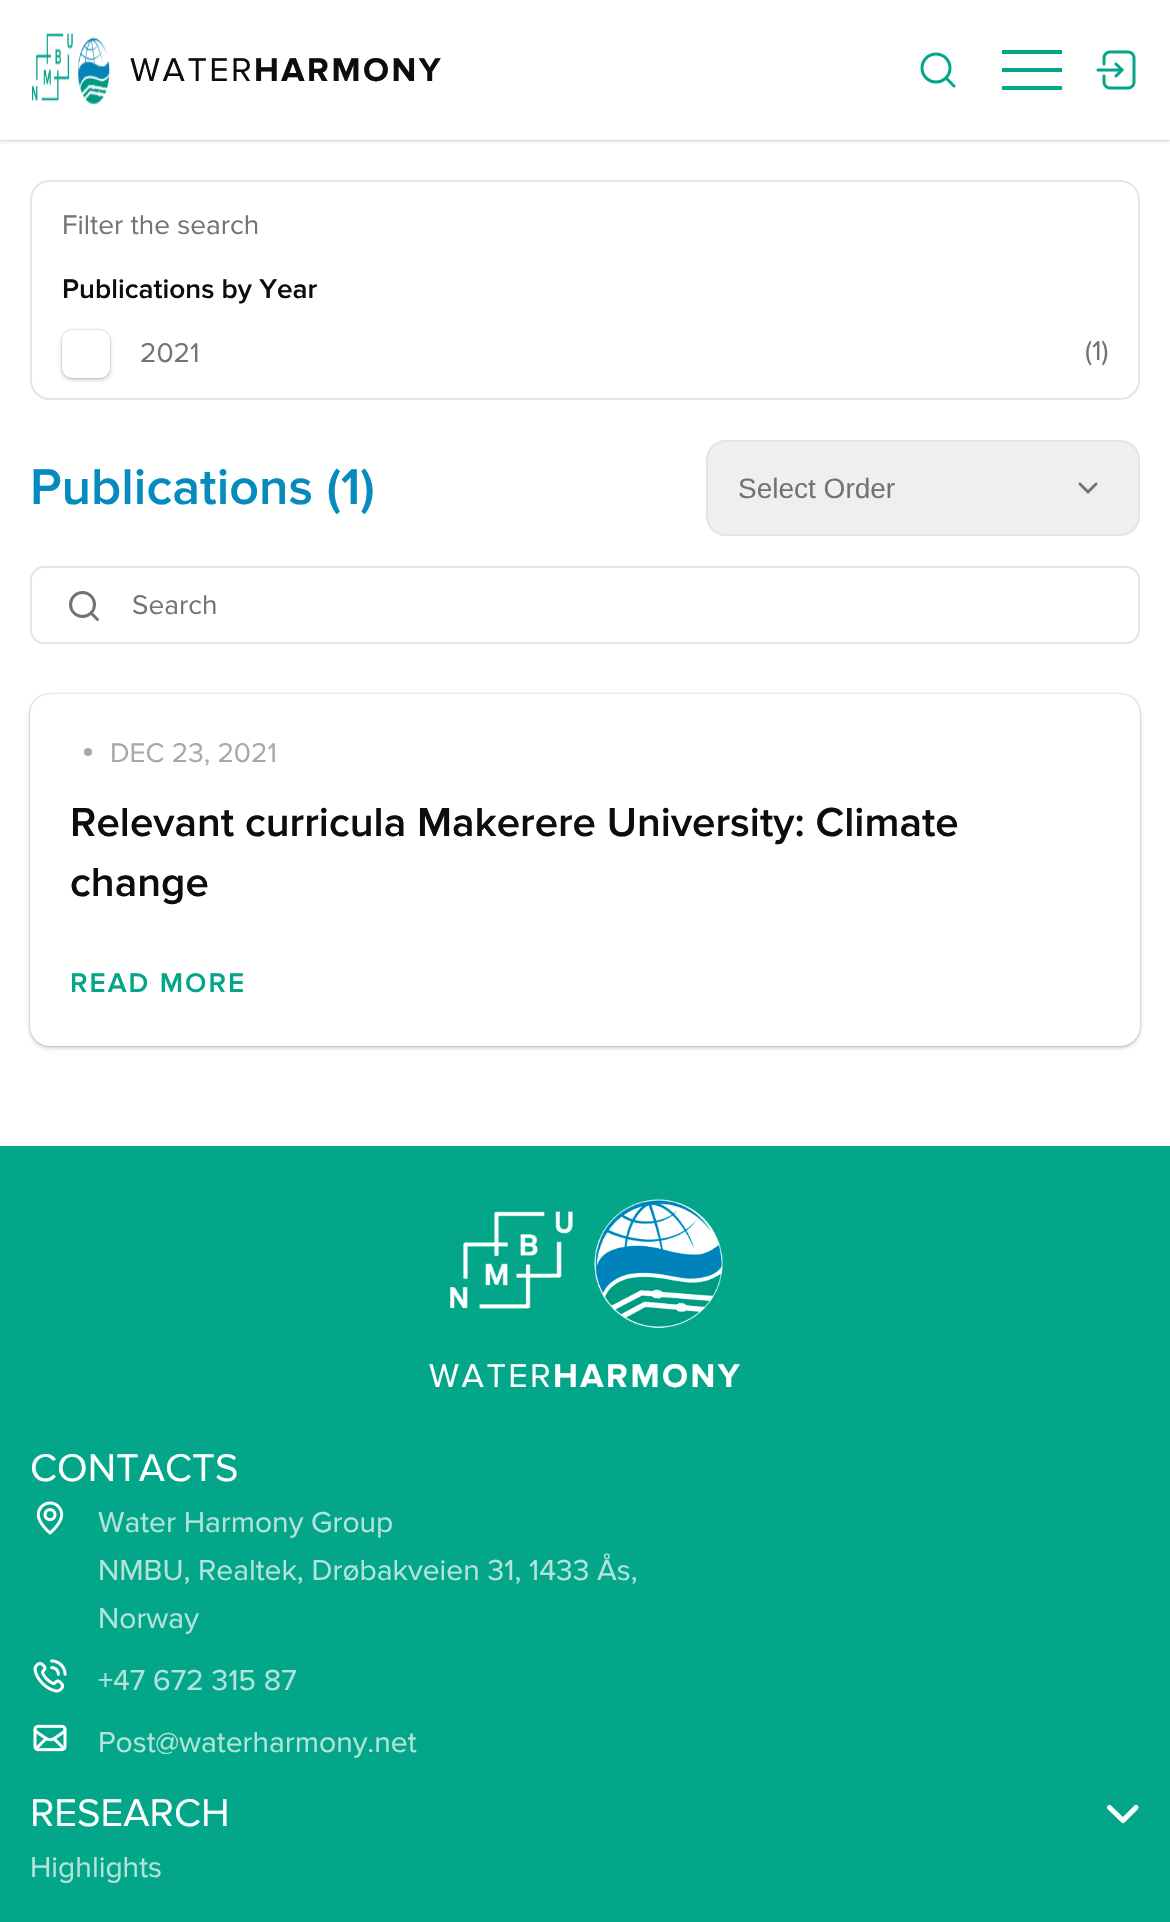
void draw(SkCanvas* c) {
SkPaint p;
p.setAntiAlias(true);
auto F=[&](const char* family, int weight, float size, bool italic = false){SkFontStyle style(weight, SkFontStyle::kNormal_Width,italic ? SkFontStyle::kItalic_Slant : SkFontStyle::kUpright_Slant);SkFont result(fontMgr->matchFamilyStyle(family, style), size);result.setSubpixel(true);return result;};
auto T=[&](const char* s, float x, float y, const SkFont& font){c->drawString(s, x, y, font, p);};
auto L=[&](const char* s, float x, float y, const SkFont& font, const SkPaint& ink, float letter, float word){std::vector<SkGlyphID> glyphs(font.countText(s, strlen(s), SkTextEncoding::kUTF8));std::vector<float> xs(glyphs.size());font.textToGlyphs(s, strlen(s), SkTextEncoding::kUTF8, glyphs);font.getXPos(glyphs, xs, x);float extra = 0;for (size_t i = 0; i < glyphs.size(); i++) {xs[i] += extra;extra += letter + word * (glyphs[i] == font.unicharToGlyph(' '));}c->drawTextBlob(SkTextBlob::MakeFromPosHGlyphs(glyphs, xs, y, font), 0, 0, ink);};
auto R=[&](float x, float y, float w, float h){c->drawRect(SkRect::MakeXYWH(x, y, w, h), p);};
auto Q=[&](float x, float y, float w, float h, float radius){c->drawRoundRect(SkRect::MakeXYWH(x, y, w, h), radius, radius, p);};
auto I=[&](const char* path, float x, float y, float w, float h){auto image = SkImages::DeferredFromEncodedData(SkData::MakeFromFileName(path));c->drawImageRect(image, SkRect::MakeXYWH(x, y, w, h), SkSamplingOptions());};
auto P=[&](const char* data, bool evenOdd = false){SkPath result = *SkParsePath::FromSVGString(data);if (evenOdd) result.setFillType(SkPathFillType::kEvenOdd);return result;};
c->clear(0xffffffff);
c->save();
c->clipRect(SkRect::MakeXYWH(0,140,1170,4));
p.setColor(0x265b6871);
p.setMaskFilter(SkMaskFilter::MakeBlur(kNormal_SkBlurStyle, 2));
c->drawRect(SkRect::MakeXYWH(0,2,1170,140),p);
p.setMaskFilter(nullptr);
c->restore();
c->save();
c->clipRect(SkRect::MakeXYWH(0,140,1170,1));
p.setColor(0x521a2024);
p.setMaskFilter(SkMaskFilter::MakeBlur(kNormal_SkBlurStyle, 1));
c->drawRect(SkRect::MakeXYWH(0,0,1170,140),p);
p.setMaskFilter(nullptr);
c->restore();
I("1.png",32,32,78,73);
auto f1 = F("Proxima Nova",400,34);
p.setColor(0xff0d0d0d);
L("WATER",130,81,f1,p,2.5,0);
auto f2 = F("Proxima Nova",700,34);
L("HARMONY",254,81,f2,p,2.5,0);
p.setStroke(true);
p.setStrokeWidth(3);
p.setColor(0xff03a688);
c->drawCircle(936,68,14,p);
p.setStrokeCap(SkPaint::kRound_Cap);
p.setStrokeJoin(SkPaint::kRound_Join);
c->drawPath(P("M954 86l-8-8"),p);
p.setStroke(false);
R(1002,50,60,4);
R(1002,68,60,4);
R(1002,86,60,4);
I("2.png",1096,50,40,40);
p.setStroke(true);
p.setStrokeWidth(2);
p.setStrokeCap(SkPaint::kButt_Cap);
p.setStrokeJoin(SkPaint::kMiter_Join);
p.setColor(0xffe5e5e5);
c->drawRoundRect(SkRect::MakeXYWH(31,181,1108,218),19,19,p);
auto f3 = F("Proxima Nova",400,28);
p.setStroke(false);
p.setColor(0xff737373);
T("Filter the search",62,234,f3);
auto f4 = F("Proxima Nova",600,28);
p.setColor(0xff0d0d0d);
T("Publications by Year",62,298,f4);
c->save();
c->clipPath(P("M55 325h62v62h-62zm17 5h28c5.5 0 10 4.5 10 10v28c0 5.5-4.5 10-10 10h-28c-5.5 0-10-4.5-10-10v-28c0-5.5 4.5-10 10-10z",true),true);
p.setColor(0x525b6871);
p.setMaskFilter(SkMaskFilter::MakeBlur(kNormal_SkBlurStyle, 2));
c->drawRoundRect(SkRect::MakeXYWH(62,332,48,48),10,10,p);
p.setMaskFilter(nullptr);
c->restore();
c->save();
c->clipPath(P("M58 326h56v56h-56zm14 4h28c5.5 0 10 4.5 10 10v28c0 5.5-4.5 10-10 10h-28c-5.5 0-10-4.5-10-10v-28c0-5.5 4.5-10 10-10z",true),true);
p.setColor(0x521a2024);
p.setMaskFilter(SkMaskFilter::MakeBlur(kNormal_SkBlurStyle, 1));
c->drawRoundRect(SkRect::MakeXYWH(62,330,48,48),10,10,p);
p.setMaskFilter(nullptr);
c->restore();
p.setColor(0xff737373);
T("2021",140,362,f3);
T("(1)",1085,360,f3);
auto f5 = F("Proxima Nova",600,52);
p.setColor(0xff068bbf);
T("Publications (1)",30,504,f5);
p.setColor(0xffefefef);
Q(706,440,434,96,20);
p.setStroke(true);
p.setStrokeWidth(3);
p.setStrokeCap(SkPaint::kRound_Cap);
p.setStrokeJoin(SkPaint::kRound_Join);
p.setColor(0xff737373);
c->drawPath(P("M1080 484l8 8l8-8"),p);
p.setStrokeWidth(2);
p.setStrokeCap(SkPaint::kButt_Cap);
p.setStrokeJoin(SkPaint::kMiter_Join);
p.setColor(0xffe5e5e5);
c->drawRoundRect(SkRect::MakeXYWH(707,441,432,94),19,19,p);
auto f6 = F("Liberation Sans",400,28);
p.setStroke(false);
p.setColor(0xff737373);
T("Select Order",738,498,f6);
p.setStroke(true);
p.setStrokeWidth(3);
c->drawCircle(82.5,604.5,12,p);
p.setStrokeCap(SkPaint::kRound_Cap);
p.setStrokeJoin(SkPaint::kRound_Join);
c->drawPath(P("M97.5 619.5l-6.5-6.5"),p);
p.setStrokeWidth(2);
p.setStrokeCap(SkPaint::kButt_Cap);
p.setStrokeJoin(SkPaint::kMiter_Join);
p.setColor(0xffe5e5e5);
c->drawRoundRect(SkRect::MakeXYWH(31,567,1108,76),13,13,p);
p.setStroke(false);
p.setColor(0xff737373);
T("Search",132,614,f3);
p.setColor(0x525b6871);
p.setMaskFilter(SkMaskFilter::MakeBlur(kNormal_SkBlurStyle, 2));
c->drawRoundRect(SkRect::MakeXYWH(30,696,1110,352),20,20,p);
p.setMaskFilter(nullptr);
p.setColor(0x521a2024);
p.setMaskFilter(SkMaskFilter::MakeBlur(kNormal_SkBlurStyle, 1));
c->drawRoundRect(SkRect::MakeXYWH(30,694,1110,352),20,20,p);
p.setMaskFilter(nullptr);
p.setColor(0xffffffff);
Q(30,694,1110,352,20);
p.setColor(0xffa8a8a8);
c->drawCircle(88,752,4,p);
T("DEC 23, 2021",110,762,f3);
auto f7 = F("Proxima Nova",600,42);
p.setColor(0xff0d0d0d);
T("Relevant curricula Makerere University: Climate",70,836,f7);
T("change",70,896,f7);
p.setColor(0xff03a688);
L("READ MORE",70,992,f4,p,2,0);
R(0,1146,1170,776);
I("3.png",449,1199,275,130);
p.setColor(0xffffffff);
L("WATER",429,1387,f1,p,2.5,0);
L("HARMONY",553,1387,f2,p,2.5,0);
auto f8 = F("Proxima Nova",400,40);
T("CONTACTS",30,1481,f8);
I("4.png",36,1501,28,34);
auto f9 = F("Proxima Nova",400,30);
p.setColor(0xffb3e4db);
T("Water Harmony Group",98,1532,f9);
T("NMBU, Realtek, Drøbakveien 31, 1433 Ås,",98,1580,f9);
T("Norway",98,1628,f9);
I("5.png",33,1659,34,34);
T("+47 672 315 87",98,1690,f9);
I("6.png",33,1724,34,28);
T("Post@waterharmony.net",98,1752,f9);
p.setColor(0xffffffff);
T("RESEARCH",30,1826,f8);
p.setStroke(true);
p.setStrokeWidth(5.1);
p.setStrokeCap(SkPaint::kRound_Cap);
p.setStrokeJoin(SkPaint::kRound_Join);
c->drawPath(P("M1109.5 1807.5l13.5 13l13-13"),p);
p.setStroke(false);
p.setColor(0xffb3e4db);
T("Highlights",30,1877,f9);
}
